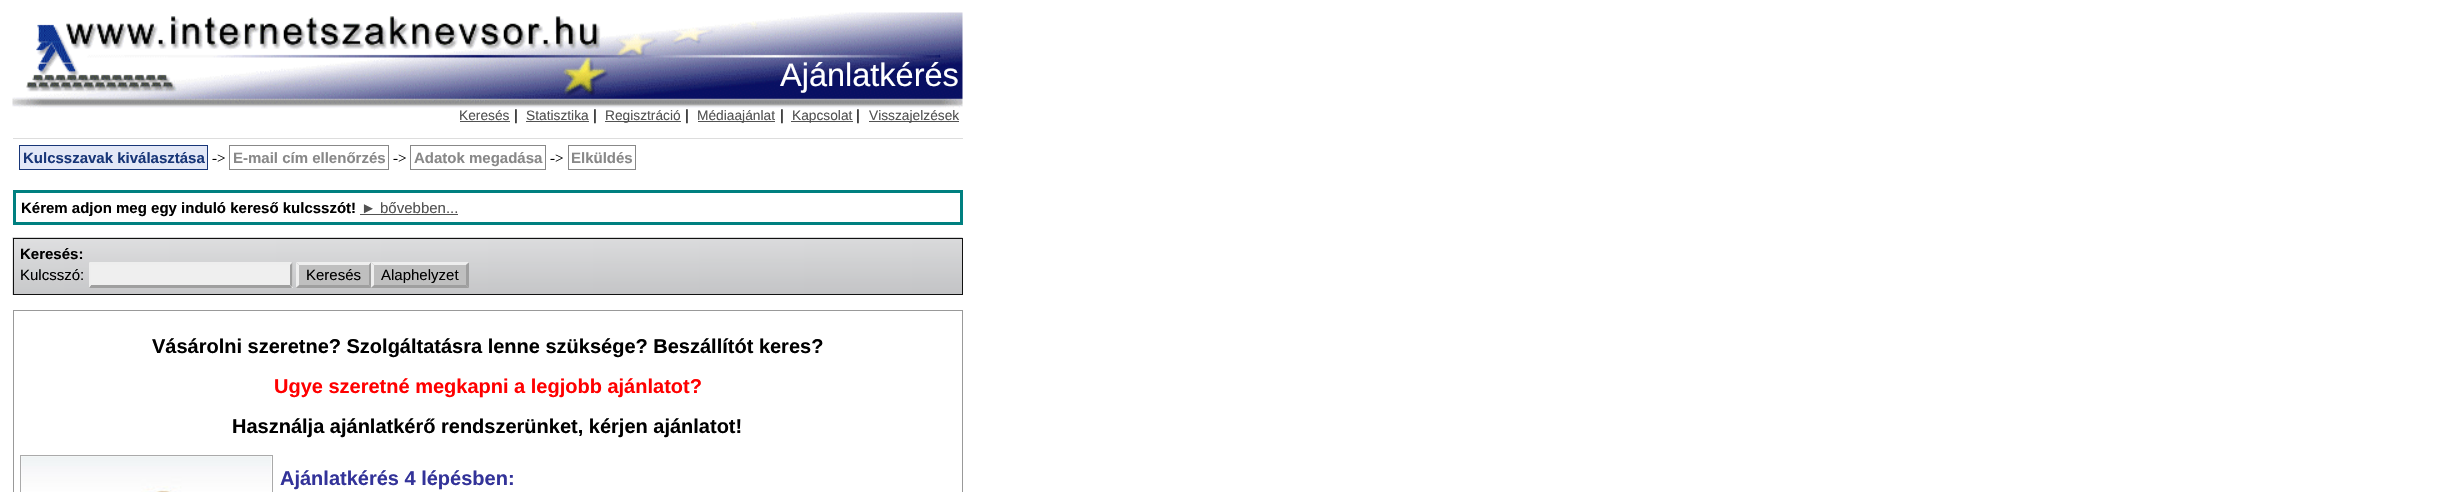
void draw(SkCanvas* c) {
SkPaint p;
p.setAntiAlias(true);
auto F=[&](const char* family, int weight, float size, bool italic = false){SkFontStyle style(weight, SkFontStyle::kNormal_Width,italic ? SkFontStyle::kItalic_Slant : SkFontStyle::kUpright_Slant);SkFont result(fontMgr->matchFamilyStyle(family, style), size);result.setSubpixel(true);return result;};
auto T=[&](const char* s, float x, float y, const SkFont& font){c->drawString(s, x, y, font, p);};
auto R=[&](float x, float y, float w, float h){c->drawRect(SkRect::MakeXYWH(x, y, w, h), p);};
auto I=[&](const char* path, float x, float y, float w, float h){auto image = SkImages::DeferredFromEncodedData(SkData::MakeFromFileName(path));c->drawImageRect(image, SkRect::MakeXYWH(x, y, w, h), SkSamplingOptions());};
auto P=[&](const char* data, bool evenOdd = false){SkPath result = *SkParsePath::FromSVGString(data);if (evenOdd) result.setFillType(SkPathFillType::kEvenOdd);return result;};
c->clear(0xffffffff);
I("1.png",12,12,951,96);
p.setColor(0xffdddddd);
R(13,138,950,1);
auto f1 = F("Liberation Sans",400,32.5);
p.setColor(0xffffffff);
T("Ajánlatkérés",780,86,f1);
auto f2 = F("Liberation Sans",400,13.75);
p.setColor(0xff525252);
T("Keresés",459,120,f2);
R(460,121,50,1);
auto f3 = F("Liberation Sans",400,15);
p.setColor(0xff000000);
T("|",514,120,f3);
p.setColor(0xff525252);
T("Statisztika",526,120,f2);
R(526,121,63,1);
p.setColor(0xff000000);
T("|",593,120,f3);
p.setColor(0xff525252);
R(605,121,76,1);
T("Regisztráció",605,120,f2);
p.setColor(0xff000000);
T("|",685,120,f3);
p.setColor(0xff525252);
R(698,121,77,1);
T("Médiaajánlat",697,120,f2);
p.setColor(0xff000000);
T("|",780,120,f3);
p.setColor(0xff525252);
R(791,121,62,1);
T("Kapcsolat",792,120,f2);
p.setColor(0xff000000);
T("|",856,120,f3);
p.setColor(0xff525252);
R(869,121,90,1);
T("Visszajelzések",869,120,f2);
p.setColor(0xffe3e8f7);
c->drawRect(SkRect::MakeXYWH(19.5,145.5,188,24),p);
p.setStroke(true);
p.setStrokeWidth(1);
p.setColor(0xff183678);
c->drawRect(SkRect::MakeXYWH(19.5,145.5,188,24),p);
auto f4 = F("Liberation Sans",700,15);
p.setStroke(false);
T("Kulcsszavak kiválasztása",23,163,f4);
auto f5 = F("Liberation Serif",400,15);
p.setColor(0xff000000);
T("->",212,163,f5);
p.setStroke(true);
p.setColor(0xff888888);
c->drawRect(SkRect::MakeXYWH(229.5,145.5,159,24),p);
p.setStroke(false);
T("E-mail cím ellenőrzés",233,163,f4);
p.setColor(0xff000000);
T("->",393,163,f5);
p.setStroke(true);
p.setColor(0xff888888);
c->drawRect(SkRect::MakeXYWH(410.5,145.5,135,24),p);
p.setStroke(false);
T("Adatok megadása",414,163,f4);
p.setColor(0xff000000);
T("->",550,163,f5);
p.setStroke(true);
p.setColor(0xff888888);
c->drawRect(SkRect::MakeXYWH(568.5,145.5,67,24),p);
p.setStroke(false);
T("Elküldés",571,163,f4);
p.setStroke(true);
p.setStrokeWidth(3);
p.setColor(0xff008080);
c->drawRect(SkRect::MakeXYWH(14.5,191.5,947,32),p);
p.setStroke(false);
p.setColor(0xff000000);
T("Kérem adjon meg egy induló kereső kulcsszót!",21,213,f4);
p.setColor(0xff525252);
T("► bővebben...",361,213,f3);
R(360,214,98,1);
I("2.png",12,237,951,58);
p.setStroke(true);
p.setStrokeWidth(1);
p.setColor(0xff111111);
c->drawRect(SkRect::MakeXYWH(13.5,238.5,949,56),p);
p.setStroke(false);
p.setColor(0xff000000);
T("Keresés:",20,259,f4);
T("Kulcsszó:",20,280,f3);
p.setColor(0xffefefef);
R(89,263,204,25);
p.setColor(0xffeeeeee);
c->drawPath(P("M89 262h203l-2 3h-199z"),p);
p.setColor(0xff9f9f9f);
c->drawPath(P("M292.5 262.5v25l-2.5-2.5v-20z"),p);
c->drawPath(P("M292 288h-203l2-3h199z"),p);
p.setColor(0xffeeeeee);
c->drawPath(P("M89 287.5v-25l2 2.5v20z"),p);
p.setColor(0xffbfbfbf);
R(296,263,173,25);
p.setColor(0xffeeeeee);
c->drawPath(P("M296 262h75l-2 3h-70z"),p);
p.setColor(0xff9f9f9f);
c->drawPath(P("M371 262.5v25l-2-2.5v-20z"),p);
c->drawPath(P("M371 288h-75l3-3h70z"),p);
p.setColor(0xffeeeeee);
c->drawPath(P("M296 287.5v-25l3 2.5v20z"),p);
p.setColor(0xff000000);
T("Keresés",306,280,f3);
p.setColor(0xffeeeeee);
c->drawPath(P("M371 262h98l-3 3h-92z"),p);
p.setColor(0xff9f9f9f);
c->drawPath(P("M469 262.5v25l-3-2.5v-20z"),p);
c->drawPath(P("M469 288h-98l3-3h92z"),p);
p.setColor(0xffeeeeee);
c->drawPath(P("M371 287.5v-25l3 2.5v20z"),p);
p.setColor(0xff000000);
T("Alaphelyzet",381,280,f3);
p.setStroke(true);
p.setColor(0xff999999);
c->drawRect(SkRect::MakeXYWH(13.5,310.5,949,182),p);
auto f6 = F("Liberation Sans",700,20);
p.setStroke(false);
p.setColor(0xff000000);
T("Vásárolni szeretne? Szolgáltatásra lenne szüksége? Beszállítót keres?",152,353,f6);
p.setColor(0xffff0000);
T("Ugye szeretné megkapni a legjobb ajánlatot?",274,393,f6);
p.setColor(0xff000000);
T("Használja ajánlatkérő rendszerünket, kérjen ajánlatot!",232,433,f6);
p.setStroke(true);
p.setColor(0xffaaaaaa);
c->drawRect(SkRect::MakeXYWH(20.5,455.5,252,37),p);
I("3.png",21,456,251,36);
p.setStroke(false);
p.setColor(0xff333399);
T("Ajánlatkérés 4 lépésben:",280,485,f6);
}
